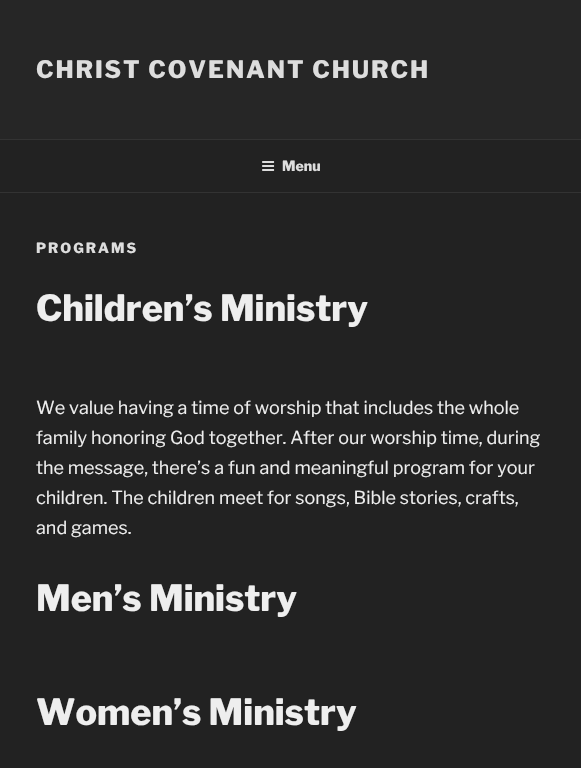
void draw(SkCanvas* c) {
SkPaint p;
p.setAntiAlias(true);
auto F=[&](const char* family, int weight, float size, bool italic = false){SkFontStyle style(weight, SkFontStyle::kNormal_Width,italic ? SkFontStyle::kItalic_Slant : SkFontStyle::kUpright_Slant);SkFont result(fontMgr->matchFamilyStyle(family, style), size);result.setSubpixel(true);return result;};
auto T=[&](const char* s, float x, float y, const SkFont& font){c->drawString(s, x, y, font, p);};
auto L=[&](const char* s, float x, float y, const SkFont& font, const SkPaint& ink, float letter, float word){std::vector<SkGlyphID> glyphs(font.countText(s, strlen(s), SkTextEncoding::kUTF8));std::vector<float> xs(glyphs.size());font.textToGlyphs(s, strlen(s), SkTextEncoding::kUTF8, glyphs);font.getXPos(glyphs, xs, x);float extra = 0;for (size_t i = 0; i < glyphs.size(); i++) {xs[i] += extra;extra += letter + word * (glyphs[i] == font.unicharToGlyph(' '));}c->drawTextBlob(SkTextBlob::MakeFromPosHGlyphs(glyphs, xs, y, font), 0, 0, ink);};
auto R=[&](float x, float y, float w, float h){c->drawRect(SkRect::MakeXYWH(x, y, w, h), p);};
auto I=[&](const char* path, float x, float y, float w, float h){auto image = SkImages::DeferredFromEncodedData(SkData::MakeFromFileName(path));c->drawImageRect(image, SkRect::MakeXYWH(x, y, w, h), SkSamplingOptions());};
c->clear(0xff222222);
p.setColor(0xff262626);
R(0,0,581,139);
auto f1 = F("Libre Franklin",100,24);
p.setColor(0xffdddddd);
L("CHRIST COVENANT CHURCH",36,78,f1,p,1.9,0);
p.setColor(0xff333333);
R(0,139,581,1);
R(0,192,581,1);
I("1.png",262,161,13,10);
auto f2 = F("Libre Franklin",100,14);
p.setColor(0xffdddddd);
T("Menu",282,171,f2);
L("PROGRAMS",36,253,f2,p,2,0);
auto f3 = F("Libre Franklin",100,36);
p.setColor(0xffeeeeee);
T("Children’s Ministry",36,321,f3);
auto f4 = F("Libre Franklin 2",100,18);
T("We value having a time of worship that includes the whole",36,414,f4);
T("family honoring God together. After our worship time, during",36,444,f4);
T("the message, there’s a fun and meaningful program for your",36,474,f4);
T("children. The children meet for songs, Bible stories, crafts,",36,504,f4);
T("and games.",36,534,f4);
T("Men’s Ministry",36,611,f3);
T("Women’s Ministry",36,725,f3);
}
